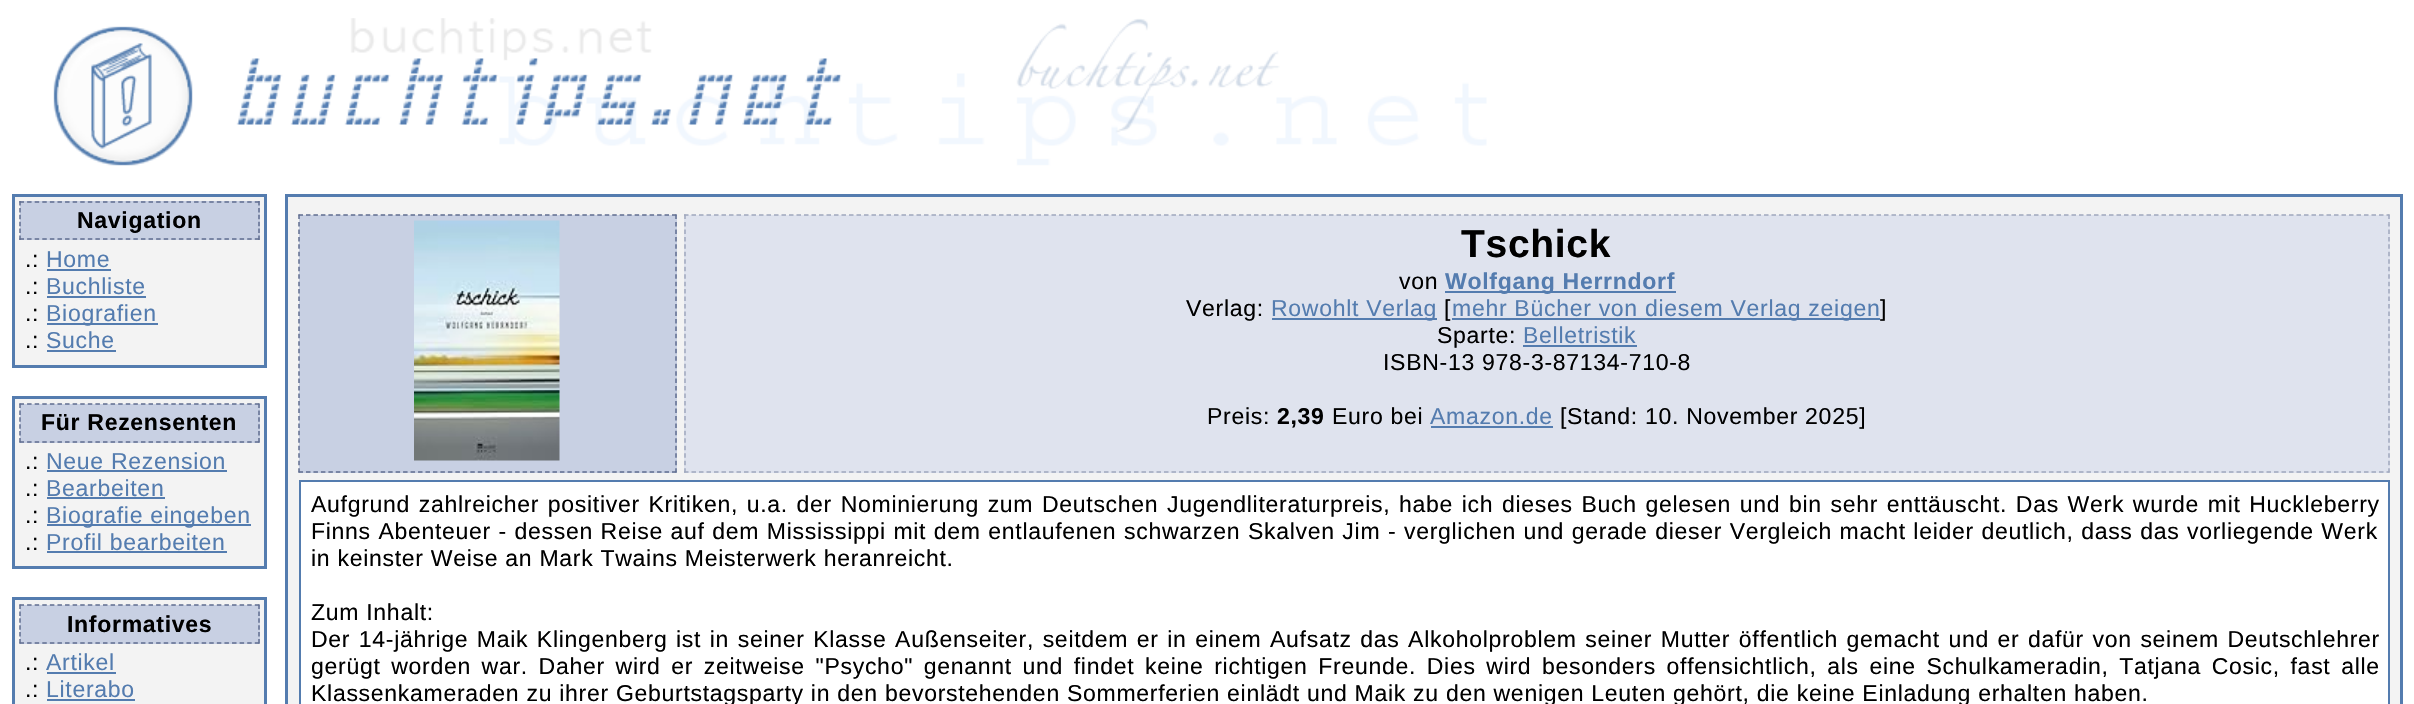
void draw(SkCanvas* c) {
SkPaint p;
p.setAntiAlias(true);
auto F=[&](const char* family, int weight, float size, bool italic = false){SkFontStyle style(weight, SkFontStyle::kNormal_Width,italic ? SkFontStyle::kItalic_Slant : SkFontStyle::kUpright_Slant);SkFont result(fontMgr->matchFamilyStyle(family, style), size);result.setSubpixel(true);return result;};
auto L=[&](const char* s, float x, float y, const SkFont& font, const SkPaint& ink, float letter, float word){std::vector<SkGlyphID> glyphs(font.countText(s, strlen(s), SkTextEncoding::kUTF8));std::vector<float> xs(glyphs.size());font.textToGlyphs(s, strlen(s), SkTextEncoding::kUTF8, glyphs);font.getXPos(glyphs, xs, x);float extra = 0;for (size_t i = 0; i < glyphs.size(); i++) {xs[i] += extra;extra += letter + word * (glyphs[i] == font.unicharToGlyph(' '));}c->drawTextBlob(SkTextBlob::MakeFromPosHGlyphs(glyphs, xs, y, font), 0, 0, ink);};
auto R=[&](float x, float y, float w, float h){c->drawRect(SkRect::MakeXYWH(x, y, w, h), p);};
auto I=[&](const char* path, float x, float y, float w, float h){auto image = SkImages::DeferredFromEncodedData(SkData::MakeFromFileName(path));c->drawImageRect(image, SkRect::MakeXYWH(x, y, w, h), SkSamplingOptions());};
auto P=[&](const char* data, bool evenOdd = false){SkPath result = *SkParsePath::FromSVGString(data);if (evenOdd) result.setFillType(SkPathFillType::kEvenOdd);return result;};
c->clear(0xffffffff);
I("1.png",53,18,1434,148);
p.setColor(0xfff3f3f3);
c->drawRect(SkRect::MakeXYWH(13.5,195.5,252,171),p);
p.setStroke(true);
p.setStrokeWidth(3);
p.setColor(0xff547caf);
c->drawRect(SkRect::MakeXYWH(13.5,195.5,252,171),p);
p.setStroke(false);
p.setColor(0xffc8d0e3);
R(20,201,240,39);
p.setStroke(true);
p.setStrokeWidth(1.5);
p.setColor(0xff5f6d90);
p.setPathEffect(SkDashPathEffect::Make({{4.5f,3.09f}}, 0));
c->drawPath(P("M19.5 202h240"),p);
p.setPathEffect(nullptr);
p.setPathEffect(SkDashPathEffect::Make({{4.5f,2.4f}}, 0));
c->drawPath(P("M259 201v39"),p);
p.setPathEffect(nullptr);
p.setPathEffect(SkDashPathEffect::Make({{4.5f,3.09f}}, 0));
c->drawPath(P("M19.5 239h240"),p);
p.setPathEffect(nullptr);
p.setPathEffect(SkDashPathEffect::Make({{4.5f,2.4f}}, 0));
c->drawPath(P("M20 201v39"),p);
p.setPathEffect(nullptr);
auto f1 = F("Liberation Sans",700,23.05);
p.setStroke(false);
p.setColor(0xff000000);
L("Navigation",77,228,f1,p,.69,0);
auto f2 = F("Liberation Sans",400,23.05);
L(".:",25,267,f2,p,.69,0);
p.setColor(0xff547caf);
L("Home",46,267,f2,p,.69,0);
R(47,269,64,2);
p.setColor(0xff000000);
L(".:",25,294,f2,p,.69,0);
p.setColor(0xff547caf);
L("Buchliste",46,294,f2,p,.69,0);
R(47,296,99,2);
p.setColor(0xff000000);
L(".:",25,321,f2,p,.69,0);
p.setColor(0xff547caf);
R(47,323,111,2);
L("Biografien",46,321,f2,p,.69,0);
p.setColor(0xff000000);
L(".:",25,348,f2,p,.69,0);
p.setColor(0xff547caf);
L("Suche",46,348,f2,p,.69,0);
R(47,350,69,2);
p.setColor(0xfff3f3f3);
c->drawRect(SkRect::MakeXYWH(13.5,397.5,252,170),p);
p.setStroke(true);
p.setStrokeWidth(3);
p.setColor(0xff547caf);
c->drawRect(SkRect::MakeXYWH(13.5,397.5,252,170),p);
p.setStroke(false);
p.setColor(0xffc8d0e3);
R(20,404,240,39);
p.setStroke(true);
p.setStrokeWidth(1.5);
p.setColor(0xff5f6d90);
p.setPathEffect(SkDashPathEffect::Make({{4.5f,3.09f}}, 0));
c->drawPath(P("M19.5 404h240"),p);
p.setPathEffect(nullptr);
p.setPathEffect(SkDashPathEffect::Make({{4.5f,2.4f}}, 0));
c->drawPath(P("M259 403.5v39"),p);
p.setPathEffect(nullptr);
p.setPathEffect(SkDashPathEffect::Make({{4.5f,3.09f}}, 0));
c->drawPath(P("M19.5 442h240"),p);
p.setPathEffect(nullptr);
p.setPathEffect(SkDashPathEffect::Make({{4.5f,2.4f}}, 0));
c->drawPath(P("M20 403.5v39"),p);
p.setPathEffect(nullptr);
p.setStroke(false);
p.setColor(0xff000000);
L("Für Rezensenten",41,430,f1,p,.69,0);
L(".:",25,469,f2,p,.69,0);
p.setColor(0xff547caf);
L("Neue Rezension",46,469,f2,p,.69,0);
R(47,470,180,2);
p.setColor(0xff000000);
L(".:",25,496,f2,p,.69,0);
p.setColor(0xff547caf);
L("Bearbeiten",46,496,f2,p,.69,0);
R(47,497,118,2);
p.setColor(0xff000000);
L(".:",25,523,f2,p,.69,0);
p.setColor(0xff547caf);
R(47,524,204,2);
L("Biografie eingeben",46,523,f2,p,.69,0);
p.setColor(0xff000000);
L(".:",25,550,f2,p,.69,0);
p.setColor(0xff547caf);
L("Profil bearbeiten",46,550,f2,p,.69,0);
R(47,551,180,2);
p.setColor(0xfff3f3f3);
c->drawRect(SkRect::MakeXYWH(13.5,598.5,252,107),p);
p.setStroke(true);
p.setStrokeWidth(3);
p.setColor(0xff547caf);
c->drawRect(SkRect::MakeXYWH(13.5,598.5,252,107),p);
p.setStroke(false);
p.setColor(0xffc8d0e3);
R(20,605,240,39);
p.setStroke(true);
p.setStrokeWidth(1.5);
p.setColor(0xff5f6d90);
p.setPathEffect(SkDashPathEffect::Make({{4.5f,3.09f}}, 0));
c->drawPath(P("M19.5 605h240"),p);
p.setPathEffect(nullptr);
p.setPathEffect(SkDashPathEffect::Make({{4.5f,2.4f}}, 0));
c->drawPath(P("M259 604.5v39"),p);
p.setPathEffect(nullptr);
p.setPathEffect(SkDashPathEffect::Make({{4.5f,3.09f}}, 0));
c->drawPath(P("M19.5 643h240"),p);
p.setPathEffect(nullptr);
p.setPathEffect(SkDashPathEffect::Make({{4.5f,2.4f}}, 0));
c->drawPath(P("M20 604.5v39"),p);
p.setPathEffect(nullptr);
p.setStroke(false);
p.setColor(0xff000000);
L("Informatives",67,632,f1,p,.69,0);
L(".:",25,670,f2,p,.69,0);
p.setColor(0xff547caf);
L("Artikel",46,670,f2,p,.69,0);
R(47,672,69,2);
p.setColor(0xff000000);
L(".:",25,697,f2,p,.69,0);
p.setColor(0xff547caf);
L("Literabo",46,697,f2,p,.69,0);
R(47,699,88,2);
p.setColor(0xfff3f3f3);
c->drawRect(SkRect::MakeXYWH(286.5,195.5,2115,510),p);
p.setStroke(true);
p.setStrokeWidth(3);
p.setColor(0xff547caf);
c->drawRect(SkRect::MakeXYWH(286.5,195.5,2115,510),p);
p.setStroke(false);
p.setColor(0xffc8d0e3);
R(299,215,378,258);
p.setStroke(true);
p.setStrokeWidth(1.5);
p.setColor(0xff5f6d90);
p.setPathEffect(SkDashPathEffect::Make({{4.5f,2.97f}}, 0));
c->drawPath(P("M298.5 215h378"),p);
p.setPathEffect(nullptr);
p.setPathEffect(SkDashPathEffect::Make({{4.5f,2.96f}}, 0));
c->drawPath(P("M676 214.5v258"),p);
p.setPathEffect(nullptr);
p.setPathEffect(SkDashPathEffect::Make({{4.5f,2.97f}}, 0));
c->drawPath(P("M298.5 472h378"),p);
p.setPathEffect(nullptr);
p.setPathEffect(SkDashPathEffect::Make({{4.5f,2.96f}}, 0));
c->drawPath(P("M299 214.5v258"),p);
p.setPathEffect(nullptr);
I("2.png",414,220,146,241);
p.setStroke(false);
p.setColor(0xffdfe3ee);
R(684,215,1706,258);
p.setStroke(true);
p.setColor(0xffa0a8bd);
p.setPathEffect(SkDashPathEffect::Make({{4.5f,3}}, 0));
c->drawPath(P("M684 215h1705.5"),p);
p.setPathEffect(nullptr);
p.setPathEffect(SkDashPathEffect::Make({{4.5f,2.96f}}, 0));
c->drawPath(P("M2389 214.5v258"),p);
p.setPathEffect(nullptr);
p.setPathEffect(SkDashPathEffect::Make({{4.5f,3}}, 0));
c->drawPath(P("M684 472h1705.5"),p);
p.setPathEffect(nullptr);
p.setPathEffect(SkDashPathEffect::Make({{4.5f,2.96f}}, 0));
c->drawPath(P("M685 214.5v258"),p);
p.setPathEffect(nullptr);
auto f3 = F("Liberation Sans",700,39);
p.setStroke(false);
p.setColor(0xff000000);
L("Tschick",1461,257,f3,p,.69,0);
L("von",1399,289,f2,p,.69,0);
p.setColor(0xff547caf);
R(1445,291,231,2);
L("Wolfgang Herrndorf",1445,289,f1,p,.69,0);
p.setColor(0xff000000);
L("Verlag:",1186,316,f2,p,.69,0);
p.setColor(0xff547caf);
R(1272,318,165,2);
L("Rowohlt Verlag",1271,316,f2,p,.69,0);
p.setColor(0xff000000);
L("[",1444,316,f2,p,.69,0);
p.setColor(0xff547caf);
R(1452,318,428,2);
L("mehr Bücher von diesem Verlag zeigen",1452,316,f2,p,.69,0);
p.setColor(0xff000000);
L("]",1880,316,f2,p,.69,0);
L("Sparte:",1437,343,f2,p,.69,0);
p.setColor(0xff547caf);
L("Belletristik",1523,343,f2,p,.69,0);
R(1523,345,114,2);
p.setColor(0xff000000);
L("ISBN-13 978-3-87134-710-8",1383,370,f2,p,.69,0);
L("Preis:",1207,424,f2,p,.69,0);
L("2,39",1277,424,f1,p,.69,0);
L("Euro bei",1332,424,f2,p,.69,0);
p.setColor(0xff547caf);
L("Amazon.de",1430,424,f2,p,.69,0);
R(1431,426,122,2);
p.setColor(0xff000000);
L("[Stand: 10. November 2025]",1560,424,f2,p,.69,0);
p.setColor(0xffffffff);
c->drawRect(SkRect::MakeXYWH(300,481,2089,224),p);
p.setStroke(true);
p.setStrokeWidth(2);
p.setColor(0xff547caf);
c->drawRect(SkRect::MakeXYWH(300,481,2089,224),p);
p.setStroke(false);
p.setColor(0xff000000);
L("Aufgrund zahlreicher positiver Kritiken, u.a. der Nominierung zum Deutschen Jugendliteraturpreis, habe ich dieses Buch gelesen und bin sehr enttäuscht. Das Werk wurde mit Huckleberry",311,512,f2,p,.69,1.6);
L("Finns Abenteuer - dessen Reise auf dem Mississippi mit dem entlaufenen schwarzen Skalven Jim",311,539,f2,p,.69,.5);
L("- verglichen und gerade dieser Vergleich macht leider deutlich, dass das vorliegende Werk",1388,539,f2,p,.69,.5);
L("in keinster Weise an Mark Twains Meisterwerk heranreicht.",311,566,f2,p,.69,0);
L("Zum Inhalt:",311,620,f2,p,.69,0);
L("Der 14-jährige Maik Klingenberg ist in seiner Klasse Außenseiter, seitdem er in einem Aufsatz das Alkoholproblem seiner Mutter öffentlich gemacht und er dafür von seinem Deutschlehrer",311,647,f2,p,.69,1.5);
L("gerügt worden war. Daher wird er zeitweise \"Psycho\" genannt und findet keine richtigen Freunde. Dies wird besonders offensichtlich, als eine Schulkameradin, Tatjana Cosic, fast alle",311,674,f2,p,.69,3.6);
L("Klassenkameraden zu ihrer Geburtstagsparty in den bevorstehenden Sommerferien einlädt und Maik zu den wenigen Leuten gehört, die keine Einladung erhalten haben.",311,701,f2,p,.69,0);
}
